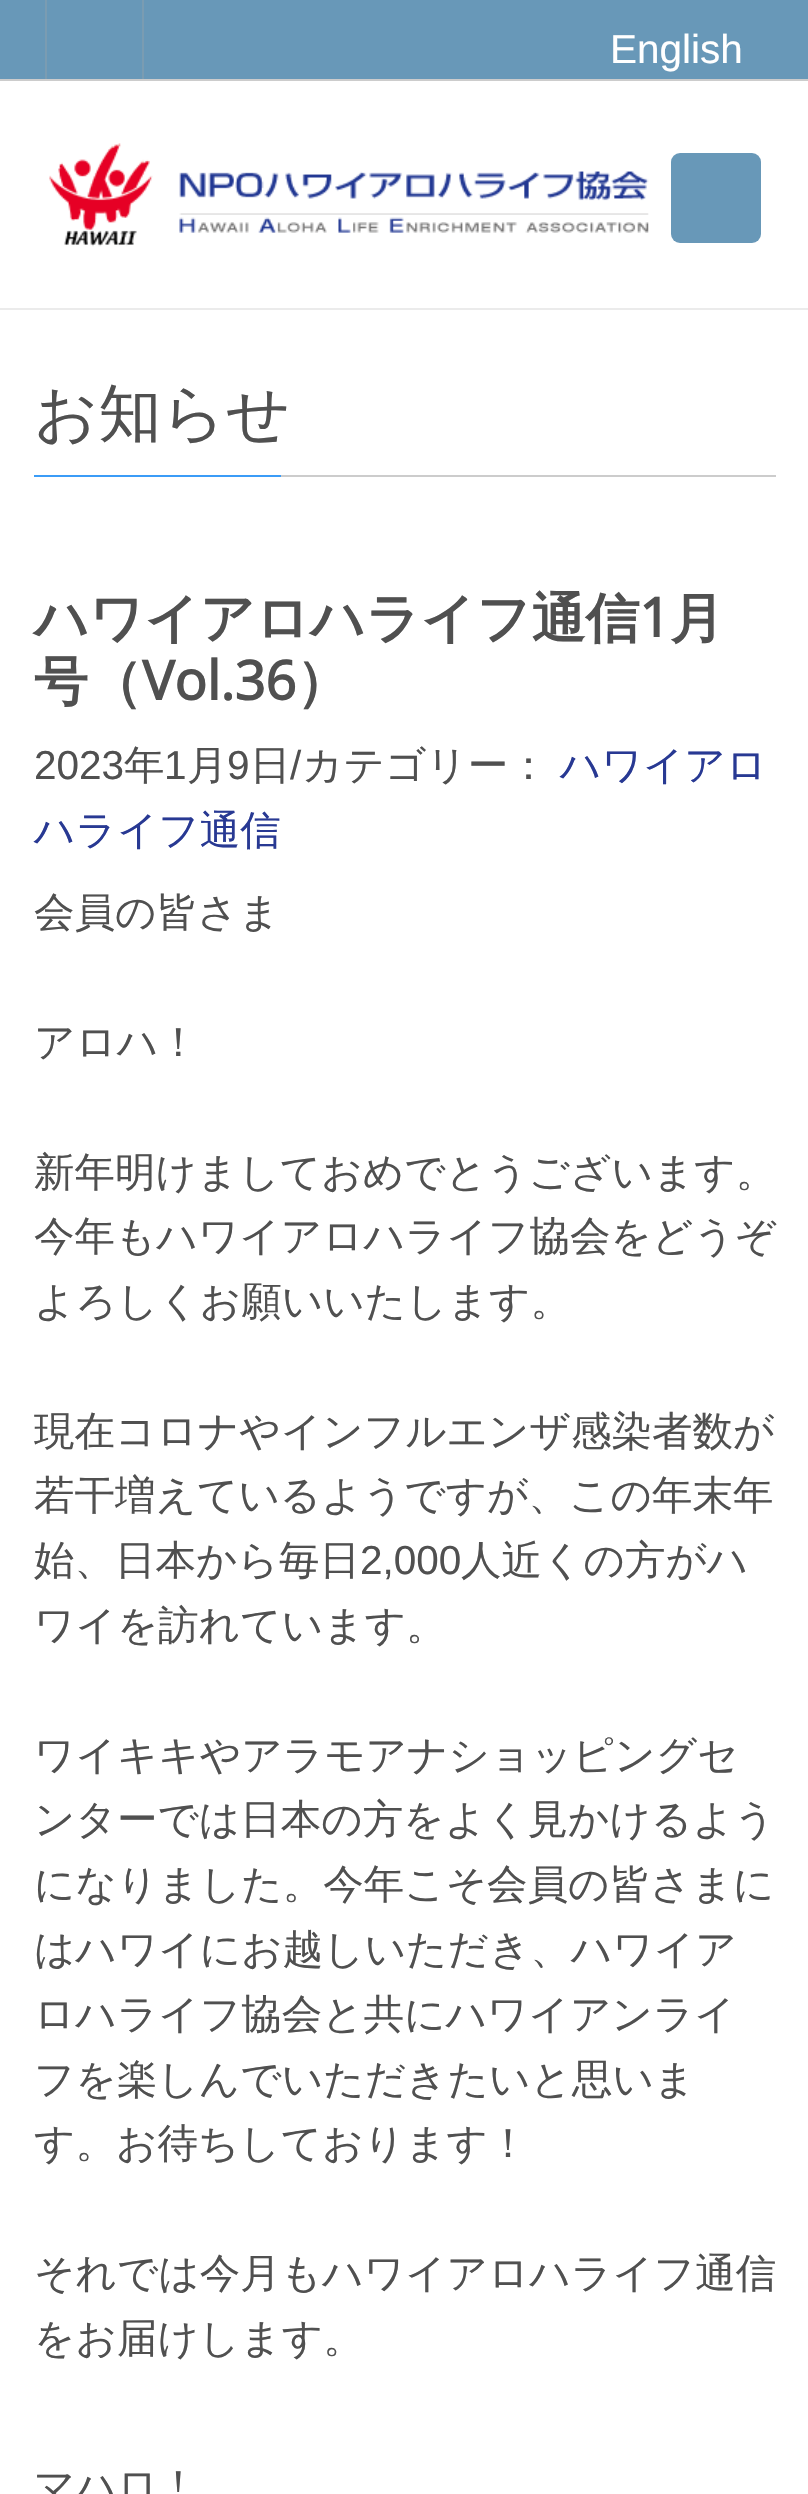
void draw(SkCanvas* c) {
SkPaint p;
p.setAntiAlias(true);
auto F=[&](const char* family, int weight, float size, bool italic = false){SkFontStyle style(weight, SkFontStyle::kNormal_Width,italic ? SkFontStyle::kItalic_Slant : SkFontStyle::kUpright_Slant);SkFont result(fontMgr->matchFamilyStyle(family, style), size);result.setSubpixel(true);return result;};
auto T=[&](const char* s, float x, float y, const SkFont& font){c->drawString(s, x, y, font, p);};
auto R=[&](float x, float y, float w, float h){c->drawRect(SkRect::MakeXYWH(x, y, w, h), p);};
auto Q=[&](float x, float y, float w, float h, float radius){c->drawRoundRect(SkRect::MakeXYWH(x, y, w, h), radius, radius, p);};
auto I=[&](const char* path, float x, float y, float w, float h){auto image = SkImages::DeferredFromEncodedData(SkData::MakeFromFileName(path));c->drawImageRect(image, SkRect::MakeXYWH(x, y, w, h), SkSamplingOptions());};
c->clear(0xffffffff);
p.setColor(0xffebebeb);
R(0,308,808,2);
p.setColor(0xff6898b8);
R(0,0,808,79);
p.setColor(0xffcccccc);
R(0,79,808,2);
p.setColor(0xff7a9cb2);
R(142,0,2,79);
R(45,0,2,79);
auto f1 = F("Liberation Sans",400,40.5);
p.setColor(0xffffffff);
T("English",610,63,f1);
I("1.png",49,143,600,104);
p.setColor(0xff6898b8);
Q(671,153,90,90,9);
p.setColor(0xffcccccc);
R(281,475,495,2);
auto f2 = F("WenQuanYi Zen Hei",500,63);
p.setColor(0xff505050);
T("お知らせ",34,435,f2);
p.setColor(0xff3b9cf7);
R(34,475,247,2);
auto f3 = F("WenQuanYi Zen Hei",700,54);
p.setColor(0xff505050);
T("ハワイアロハライフ通信",34,637,f3);
auto f4 = F("Open Sans",700,54);
T("1",639,637,f4);
T("月",670,637,f3);
T("号（",34,700,f3);
T("Vol.36",142,700,f4);
T("）",296,700,f3);
T("2023",34,779,f1);
auto f5 = F("WenQuanYi Zen Hei",500,40.5);
T("年",124,779,f5);
T("1",164,779,f1);
T("月",187,779,f5);
T("9",227,779,f1);
T("日",250,779,f5);
T("/",290,779,f1);
T("カテゴリー：",302,779,f5);
p.setColor(0xff283993);
T("ハワイアロ",560,779,f5);
T("ハライフ通信",34,844,f5);
p.setColor(0xff505050);
T("会員の皆さま",34,926,f5);
T("アロハ！",34,1056,f5);
T("新年明けましておめでとうございます。",34,1186,f5);
T("今年もハワイアロハライフ協会をどうぞ",34,1250,f5);
T("よろしくお願いいたします。",34,1315,f5);
T("現在コロナやインフルエンザ感染者数が",34,1445,f5);
T("若干増えているようですが、この年末年",34,1509,f5);
T("始、日本から毎日",34,1574,f5);
T("2,000",360,1574,f1);
T("人近くの方がハ",461,1574,f5);
T("ワイを訪れています。",34,1639,f5);
T("ワイキキやアラモアナショッピングセ",34,1769,f5);
T("ンターでは日本の方をよく見かけるよう",34,1833,f5);
T("になりました。今年こそ会員の皆さまに",34,1898,f5);
T("はハワイにお越しいただき、ハワイア",34,1963,f5);
T("ロハライフ協会と共にハワイアンライ",34,2028,f5);
T("フを楽しんでいただきたいと思いま",34,2093,f5);
T("す。お待ちしております！",34,2157,f5);
T("それでは今月もハワイアロハライフ通信",34,2287,f5);
T("をお届けします。",34,2352,f5);
T("マハロ！",34,2499,f5);
}
